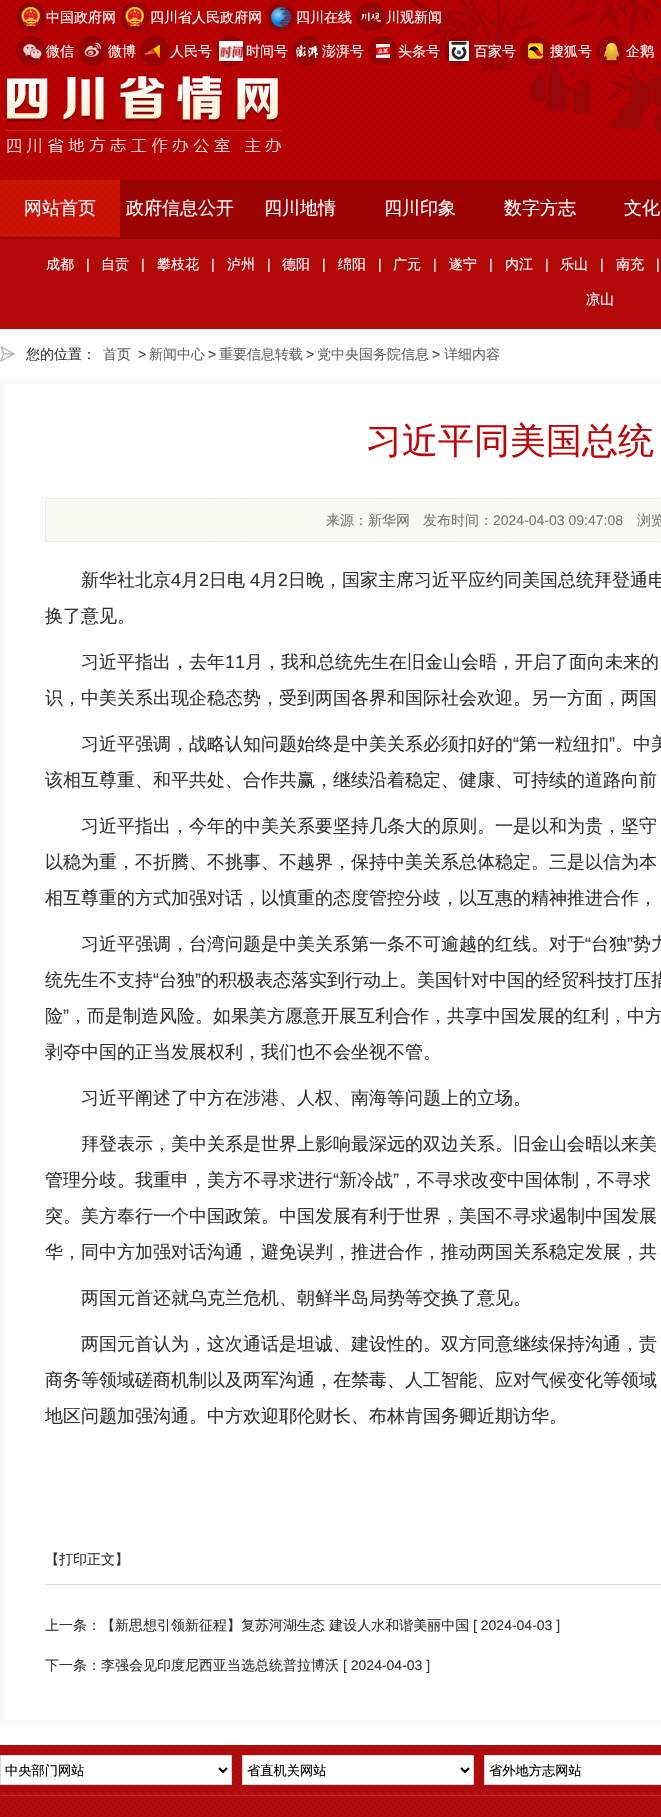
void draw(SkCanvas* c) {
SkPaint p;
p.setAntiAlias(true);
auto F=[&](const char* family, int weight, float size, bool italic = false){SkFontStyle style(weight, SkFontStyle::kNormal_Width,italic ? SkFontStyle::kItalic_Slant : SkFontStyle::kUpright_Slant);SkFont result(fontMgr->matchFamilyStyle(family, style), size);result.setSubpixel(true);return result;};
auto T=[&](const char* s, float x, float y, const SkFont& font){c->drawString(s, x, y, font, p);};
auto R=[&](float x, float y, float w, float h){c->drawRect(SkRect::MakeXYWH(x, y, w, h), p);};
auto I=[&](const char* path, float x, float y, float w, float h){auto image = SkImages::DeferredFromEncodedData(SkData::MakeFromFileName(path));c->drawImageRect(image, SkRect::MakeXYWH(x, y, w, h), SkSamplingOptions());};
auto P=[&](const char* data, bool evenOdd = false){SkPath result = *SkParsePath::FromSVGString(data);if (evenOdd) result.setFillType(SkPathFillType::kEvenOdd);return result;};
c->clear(0xffffffff);
I("1.png",0,0,661,237);
I("2.png",400,0,261,135);
I("3.png",16,2,30,30);
I("4.png",21,7,19,20);
auto f1 = F("WenQuanYi Zen Hei",500,14);
p.setColor(0xffffffff);
T("中国政府网",46,22,f1);
I("3.png",120,2,30,30);
I("4.png",125,7,19,20);
T("四川省人民政府网",150,22,f1);
I("5.png",266,2,30,30);
I("6.png",271,7,20,20);
T("四川在线",296,22,f1);
I("7.png",356,2,30,30);
I("8.png",361,12,20,10);
T("川观新闻",386,22,f1);
I("9.png",16,36,30,30);
I("10.png",23,44,19,15);
T("微信",46,56,f1);
I("11.png",78,36,30,30);
I("12.png",84,42,17,15);
T("微博",108,56,f1);
I("13.png",140,36,30,30);
I("14.png",145,45,15,13);
T("人民号",170,56,f1);
I("9.png",216,36,30,30);
I("15.png",219,41,24,20);
T("时间号",246,56,f1);
I("13.png",292,36,30,30);
I("16.png",296,45,22,13);
T("澎湃号",322,56,f1);
I("9.png",368,36,30,30);
I("17.png",376,44,14,14);
T("头条号",398,56,f1);
I("18.png",444,36,30,30);
I("19.png",449,41,20,20);
T("百家号",474,56,f1);
I("20.png",520,36,30,30);
I("21.png",528,43,15,16);
T("搜狐号",550,56,f1);
I("13.png",596,36,30,30);
I("22.png",604,43,15,17);
T("企鹅",626,56,f1);
I("23.png",5,76,277,77);
I("24.png",0,180,120,57);
auto f2 = F("WenQuanYi Zen Hei",500,18);
T("网站首页",24,214,f2);
T("政府信息公开",126,214,f2);
T("四川地情",264,214,f2);
T("四川印象",384,214,f2);
T("数字方志",504,214,f2);
T("文化",624,214,f2);
p.setColor(0xffb30808);
R(0,239,661,90);
p.setColor(0xff950304);
R(0,237,661,2);
p.setColor(0xffffffff);
T("成都",46,269,f1);
auto f3 = F("Liberation Sans",400,14);
T("|",86,269,f3);
T("自贡",101,269,f1);
T("|",141,269,f3);
T("攀枝花",157,269,f1);
T("|",211,269,f3);
T("泸州",227,269,f1);
T("|",267,269,f3);
T("德阳",282,269,f1);
T("|",322,269,f3);
T("绵阳",338,269,f1);
T("|",378,269,f3);
T("广元",393,269,f1);
T("|",433,269,f3);
T("遂宁",449,269,f1);
T("|",489,269,f3);
T("内江",505,269,f1);
T("|",545,269,f3);
T("乐山",560,269,f1);
T("|",600,269,f3);
T("南充",616,269,f1);
T("|",656,269,f3);
T("凉山",586,304,f1);
I("25.png",0,346,15,16);
p.setColor(0xff333333);
T("您的位置：",26,359,f1);
p.setColor(0xff666666);
T("首页",103,359,f1);
p.setColor(0xff333333);
T(">",138,359,f3);
p.setColor(0xff666666);
T("新闻中心",149,359,f1);
p.setColor(0xff333333);
T(">",208,359,f3);
p.setColor(0xff666666);
T("重要信息转载",219,359,f1);
p.setColor(0xff333333);
T(">",306,359,f3);
p.setColor(0xff666666);
T("党中央国务院信息",317,359,f1);
p.setColor(0xff333333);
T(">",432,359,f3);
p.setColor(0xff666666);
T("详细内容",444,359,f1);
p.setStroke(true);
p.setStrokeWidth(5);
p.setColor(0xfff9f9f9);
c->drawRect(SkRect::MakeXYWH(2.5,381.5,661,1341),p);
auto f4 = F("WenQuanYi Zen Hei",500,36);
p.setStroke(false);
p.setColor(0xffbe0708);
T("习近平同美国总统",366,453,f4);
p.setColor(0xfff7fbf2);
R(45,498,616,44);
p.setStroke(true);
p.setStrokeWidth(1);
p.setColor(0xffdddddd);
p.setPathEffect(SkDashPathEffect::Make({{1,1}}, 0));
c->drawPath(P("M45 498.5h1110"),p);
p.setPathEffect(nullptr);
p.setPathEffect(SkDashPathEffect::Make({{1,1}}, 0));
c->drawPath(P("M45 541.5h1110"),p);
p.setPathEffect(nullptr);
p.setPathEffect(SkDashPathEffect::Make({{1,1}}, 0));
c->drawPath(P("M45.5 498v44"),p);
p.setPathEffect(nullptr);
p.setStroke(false);
p.setColor(0xff777777);
T("来源：新华网",326,525,f1);
T("发布时间：",423,525,f1);
T("2024-04-03 09:47:08",493,525,f3);
T("浏览",637,525,f1);
p.setColor(0xff333333);
T("新华社北京",81,586,f2);
auto f5 = F("Liberation Sans",400,18);
T("4",171,586,f5);
T("月",181,586,f2);
T("2",199,586,f5);
T("日电",209,586,f2);
T("4",250,586,f5);
T("月",260,586,f2);
T("2",278,586,f5);
T("日晚，国家主席习近平应约同美国总统拜登通电",288,586,f2);
T("换了意见。",45,622,f2);
T("习近平指出，去年",81,668,f2);
T("11",225,668,f5);
T("月，我和总统先生在旧金山会晤，开启了面向未来的",245,668,f2);
T("识，中美关系出现企稳态势，受到两国各界和国际社会欢迎。另一方面，两国",45,704,f2);
T("习近平强调，战略认知问题始终是中美关系必须扣好的",81,750,f2);
T("“",513,750,f5);
T("第一粒纽扣",519,750,f2);
T("”",609,750,f5);
T("。中美",615,750,f2);
T("该相互尊重、和平共处、合作共赢，继续沿着稳定、健康、可持续的道路向前",45,786,f2);
T("习近平指出，今年的中美关系要坚持几条大的原则。一是以和为贵，坚守",81,832,f2);
T("以稳为重，不折腾、不挑事、不越界，保持中美关系总体稳定。三是以信为本",45,868,f2);
T("相互尊重的方式加强对话，以慎重的态度管控分歧，以互惠的精神推进合作，",45,904,f2);
T("习近平强调，台湾问题是中美关系第一条不可逾越的红线。对于",81,950,f2);
T("“",585,950,f5);
T("台独",591,950,f2);
T("”",627,950,f5);
T("势力",633,950,f2);
T("统先生不支持",45,986,f2);
T("“",153,986,f5);
T("台独",159,986,f2);
T("”",195,986,f5);
T("的积极表态落实到行动上。美国针对中国的经贸科技打压措",201,986,f2);
T("险",45,1022,f2);
T("”",63,1022,f5);
T("，而是制造风险。如果美方愿意开展互利合作，共享中国发展的红利，中方",69,1022,f2);
T("剥夺中国的正当发展权利，我们也不会坐视不管。",45,1058,f2);
T("习近平阐述了中方在涉港、人权、南海等问题上的立场。",81,1104,f2);
T("拜登表示，美中关系是世界上影响最深远的双边关系。旧金山会晤以来美",81,1150,f2);
T("管理分歧。我重申，美方不寻求进行",45,1186,f2);
T("“",333,1186,f5);
T("新冷战",339,1186,f2);
T("”",393,1186,f5);
T("，不寻求改变中国体制，不寻求",399,1186,f2);
T("突。美方奉行一个中国政策。中国发展有利于世界，美国不寻求遏制中国发展",45,1222,f2);
T("华，同中方加强对话沟通，避免误判，推进合作，推动两国关系稳定发展，共",45,1258,f2);
T("两国元首还就乌克兰危机、朝鲜半岛局势等交换了意见。",81,1304,f2);
T("两国元首认为，这次通话是坦诚、建设性的。双方同意继续保持沟通，责",81,1350,f2);
T("商务等领域磋商机制以及两军沟通，在禁毒、人工智能、应对气候变化等领域",45,1386,f2);
T("地区问题加强沟通。中方欢迎耶伦财长、布林肯国务卿近期访华。",45,1422,f2);
p.setColor(0xffdddddd);
R(45,1584,616,1);
p.setColor(0xff333333);
T("【打印正文】",45,1564,f1);
T("上一条：",45,1630,f1);
T("【新思想引领新征程】复苏河湖生态 建设人水和谐美丽中国",101,1630,f1);
T("[ 2024-04-03 ]",473,1630,f3);
T("下一条：李强会见印度尼西亚当选总统普拉博沃",45,1670,f1);
T("[ 2024-04-03 ]",343,1670,f3);
I("26.png",0,1745,661,50);
p.setColor(0xffb32728);
R(0,1795,661,1);
p.setColor(0xffffffff);
c->drawRect(SkRect::MakeXYWH(.5,1755.5,231,29),p);
p.setStroke(true);
p.setColor(0xffd7d7d7);
c->drawRect(SkRect::MakeXYWH(.5,1755.5,231,29),p);
p.setStrokeWidth(2);
p.setColor(0xff000000);
c->drawPath(P("M219 1768l4 4l4-4"),p);
auto f6 = F("WenQuanYi Zen Hei",500,13.25);
p.setStroke(false);
T("中央部门网站",5,1775,f6);
p.setColor(0xffffffff);
c->drawRect(SkRect::MakeXYWH(242.5,1755.5,231,29),p);
p.setStroke(true);
p.setStrokeWidth(1);
p.setColor(0xffd7d7d7);
c->drawRect(SkRect::MakeXYWH(242.5,1755.5,231,29),p);
p.setStrokeWidth(2);
p.setColor(0xff000000);
c->drawPath(P("M461 1768l4 4l4-4"),p);
p.setStroke(false);
T("省直机关网站",247,1775,f6);
p.setColor(0xffffffff);
c->drawRect(SkRect::MakeXYWH(484.5,1755.5,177,29),p);
p.setStroke(true);
p.setStrokeWidth(1);
p.setColor(0xffd7d7d7);
c->drawRect(SkRect::MakeXYWH(484.5,1755.5,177,29),p);
p.setStroke(false);
p.setColor(0xff000000);
T("省外地方志网站",489,1775,f6);
I("27.png",0,1796,661,21);
}
